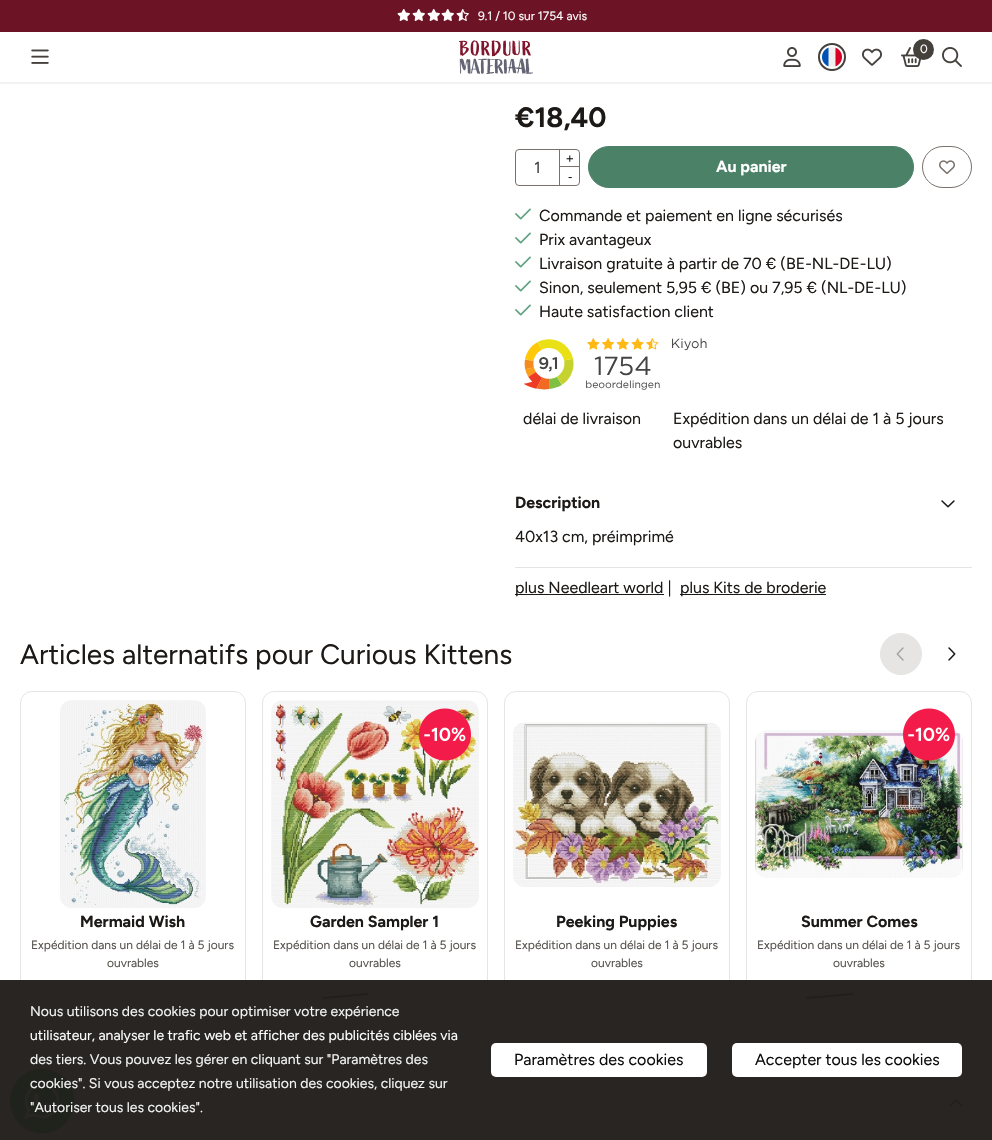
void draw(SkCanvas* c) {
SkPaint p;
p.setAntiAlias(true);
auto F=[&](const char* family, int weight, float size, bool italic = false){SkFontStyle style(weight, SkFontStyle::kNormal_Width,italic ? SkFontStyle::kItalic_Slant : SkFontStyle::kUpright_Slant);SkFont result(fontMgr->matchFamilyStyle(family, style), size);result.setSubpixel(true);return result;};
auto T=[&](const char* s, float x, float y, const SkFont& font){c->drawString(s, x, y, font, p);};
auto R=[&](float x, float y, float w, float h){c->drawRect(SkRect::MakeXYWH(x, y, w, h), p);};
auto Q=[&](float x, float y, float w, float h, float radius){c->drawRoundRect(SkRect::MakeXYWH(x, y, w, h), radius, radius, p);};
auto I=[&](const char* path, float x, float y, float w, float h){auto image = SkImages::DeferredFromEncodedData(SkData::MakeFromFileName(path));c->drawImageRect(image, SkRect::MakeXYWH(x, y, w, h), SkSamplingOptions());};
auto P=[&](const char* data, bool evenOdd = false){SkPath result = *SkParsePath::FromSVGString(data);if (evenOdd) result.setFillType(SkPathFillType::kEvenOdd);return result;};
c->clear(0xffffffff);
p.setColor(0xff6d1326);
R(0,0,992,32);
I("1.png",397,9,13,12);
I("1.png",412,9,13,12);
I("1.png",427,9,13,12);
I("1.png",441,9,13,12);
I("2.png",456,9,13,12);
auto f1 = F("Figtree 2",300,12);
p.setColor(0xffffffff);
T("9.1 / 10 sur 1754 avis",478,20,f1);
p.setColor(0xfff2f2f2);
R(0,82,992,2);
I("3.png",31,49,18,15);
I("4.png",459,40,74,34);
I("5.png",783,47,18,20);
p.setStroke(true);
p.setStrokeWidth(2);
p.setColor(0xff44403c);
c->drawCircle(832,57,13,p);
I("6.png",822,47,20,20);
I("7.png",862,48,20,18);
I("8.png",901,47,21,20);
p.setStroke(false);
c->drawCircle(923.5,49.5,10.5,p);
p.setColor(0xffffffff);
T("0",920,53,f1);
I("9.png",942,47,20,20);
auto f2 = F("Figtree",300,28);
p.setColor(0xff1c1917);
T("€18,40",515,127,f2);
p.setStroke(true);
p.setStrokeWidth(1);
p.setColor(0xff78716c);
c->drawRoundRect(SkRect::MakeXYWH(515.5,149.5,64,36),3.5,3.5,p);
auto f3 = F("Figtree 2",300,16);
p.setStroke(false);
p.setColor(0xff44403c);
T("1",534,173,f3);
p.setColor(0xff78716c);
R(559,166,21,1);
R(559,149,1,36);
auto f4 = F("Liberation Sans",400,13);
p.setColor(0xff1c1917);
T("+",566,163,f4);
T("-",568,181,f4);
p.setColor(0xff4b8167);
c->drawRoundRect(SkRect::MakeXYWH(588.5,146.5,325,41),20.5,20.5,p);
p.setStroke(true);
c->drawRoundRect(SkRect::MakeXYWH(588.5,146.5,325,41),20.5,20.5,p);
auto f5 = F("Figtree",300,16);
p.setStroke(false);
p.setColor(0xffffffff);
T("Au panier",716,172,f5);
p.setStroke(true);
p.setColor(0xff78716c);
c->drawRoundRect(SkRect::MakeXYWH(922.5,146.5,49,41),20.5,20.5,p);
I("10.png",939,160,16,14);
I("11.png",515,208,16,12);
p.setStroke(false);
p.setColor(0xff1c1917);
T("Commande et paiement en ligne sécurisés",539,221,f3);
I("11.png",515,232,16,12);
T("Prix avantageux",539,245,f3);
I("11.png",515,256,16,12);
T("Livraison gratuite à partir de 70 € (BE-NL-DE-LU)",539,269,f3);
I("11.png",515,280,16,12);
T("Sinon, seulement 5,95 € (BE) ou 7,95 € (NL-DE-LU)",539,293,f3);
I("11.png",515,304,16,12);
T("Haute satisfaction client",539,317,f3);
I("12.png",524,338,183,52);
T("délai de livraison",523,424,f3);
T("Expédition dans un délai de 1 à 5 jours",673,424,f3);
T("ouvrables",673,448,f3);
T("Description",515,508,f5);
I("13.png",941,500,14,8);
p.setColor(0xffe7e5e4);
R(515,567,457,1);
p.setColor(0xff1c1917);
T("40x13 cm, préimprimé",515,542,f3);
R(515,594,149,1);
T("plus Needleart world |",515,593,f3);
R(680,594,146,1);
T("plus Kits de broderie",680,593,f3);
auto f6 = F("Figtree 2",300,28);
T("Articles alternatifs pour Curious Kittens",20,664,f6);
p.setColor(0xffe7e5e4);
c->drawCircle(901,654,20.5,p);
p.setStroke(true);
c->drawCircle(901,654,20.5,p);
I("14.png",896,647,8,14);
I("15.png",948,647,8,14);
c->drawRoundRect(SkRect::MakeXYWH(20.5,691.5,225,324),11.5,11.5,p);
I("16.png",60,700,146,208);
p.setStroke(false);
p.setColor(0xff1c1917);
T("Mermaid Wish",80,927,f5);
p.setColor(0xff57534e);
T("Expédition dans un délai de 1 à 5 jours",31,949,f1);
T("ouvrables",107,967,f1);
p.setStroke(true);
p.setColor(0xffe7e5e4);
c->drawRoundRect(SkRect::MakeXYWH(262.5,691.5,225,324),11.5,11.5,p);
I("17.png",271,700,208,208);
I("18.png",419,708,52,53);
p.setStroke(false);
p.setColor(0xff1c1917);
T("Garden Sampler 1",310,927,f5);
p.setColor(0xff57534e);
T("Expédition dans un délai de 1 à 5 jours",273,949,f1);
T("ouvrables",349,967,f1);
p.setColor(0xff78716c);
c->drawPath(P("M323 997l45-4v2l-45 4z"),p);
p.setStroke(true);
p.setColor(0xffe7e5e4);
c->drawRoundRect(SkRect::MakeXYWH(504.5,691.5,225,324),11.5,11.5,p);
I("19.png",513,722,208,165);
p.setStroke(false);
p.setColor(0xff1c1917);
T("Peeking Puppies",556,927,f5);
p.setColor(0xff57534e);
T("Expédition dans un délai de 1 à 5 jours",515,949,f1);
T("ouvrables",591,967,f1);
p.setStroke(true);
p.setColor(0xffe7e5e4);
c->drawRoundRect(SkRect::MakeXYWH(746.5,691.5,225,324),11.5,11.5,p);
I("21.png",755,730,208,148);
I("20.png",903,708,52,53);
p.setStroke(false);
p.setColor(0xff1c1917);
T("Summer Comes",801,927,f5);
p.setColor(0xff57534e);
T("Expédition dans un délai de 1 à 5 jours",757,949,f1);
T("ouvrables",833,967,f1);
p.setColor(0xff78716c);
c->drawPath(P("M806 997l47-4v2l-46 4z"),p);
p.setStroke(true);
p.setColor(0xffe7e5e4);
c->drawRoundRect(SkRect::MakeXYWH(20.5,1107.5,144,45),11.5,11.5,p);
I("22.png",9,1068,66,66);
I("23.png",949,1099,14,8);
p.setStroke(false);
p.setColor(0xf21c1917);
R(0,980,992,160);
auto f7 = F("Figtree 2",300,14);
p.setColor(0xfff4f4f4);
T("Nous utilisons des cookies pour optimiser votre expérience",30,1016,f7);
p.setColor(0xffffffff);
T("utilisateur, analyser le trafic web et afficher des publicités ciblées via",30,1040,f7);
p.setColor(0xfff4f4f4);
T("des tiers. Vous pouvez les gérer en cliquant sur \"Paramètres des",30,1064,f7);
T("cookies\". Si vous acceptez notre utilisation des cookies, cliquez sur",30,1088,f7);
T("\"Autoriser tous les cookies\".",30,1112,f7);
p.setColor(0xffffffff);
Q(491,1043,216,34,5);
p.setColor(0xff0d0d0d);
T("Paramètres des cookies",514,1065,f3);
p.setColor(0xffffffff);
Q(732,1043,230,34,5);
p.setColor(0xff0d0d0d);
T("Accepter tous les cookies",755,1065,f3);
}
